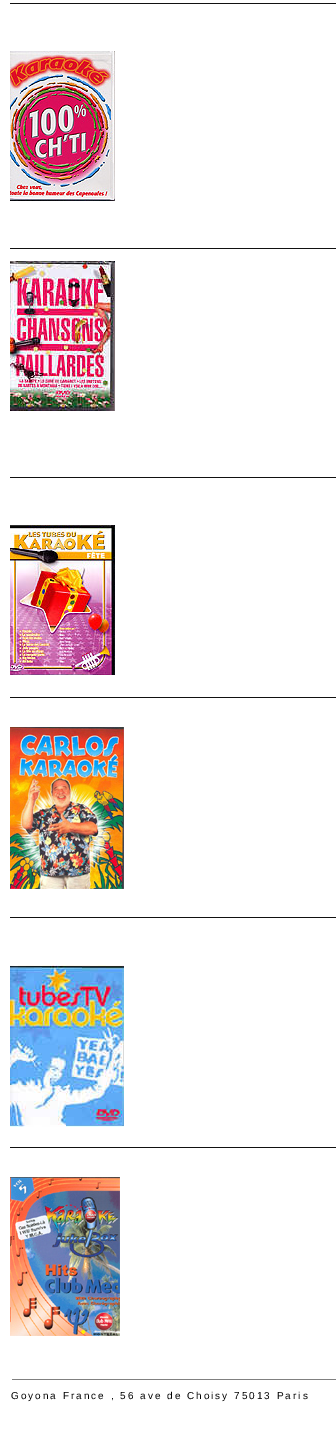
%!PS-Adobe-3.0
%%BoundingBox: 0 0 336 1431
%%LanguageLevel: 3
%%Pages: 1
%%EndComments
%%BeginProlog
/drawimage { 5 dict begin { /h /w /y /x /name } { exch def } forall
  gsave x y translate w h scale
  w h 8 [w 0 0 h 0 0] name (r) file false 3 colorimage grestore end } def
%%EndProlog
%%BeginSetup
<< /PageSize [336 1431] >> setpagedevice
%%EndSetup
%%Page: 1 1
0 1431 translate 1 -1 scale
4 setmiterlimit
1 setgray
0 0 336 1431 rectfill
0.067 setgray
10 3 326 1 rectfill
(images/1.raw) 10 51 105 150 drawimage
10 248 326 1 rectfill
(images/2.raw) 10 261 105 150 drawimage
10 477 326 1 rectfill
(images/3.raw) 10 525 105 150 drawimage
10 697 326 1 rectfill
(images/4.raw) 10 727 114 162 drawimage
10 917 326 1 rectfill
(images/5.raw) 10 965 114 162 drawimage
10 1147 326 1 rectfill
(images/6.raw) 10 1177 110 159 drawimage
0.502 setgray
11 1379 325 1 rectfill
1 setgray
11 1379 1 1 rectfill
/LiberationSans-Regular [10 0 0 -10 0 0] selectfont
0 setgray
11 1399 moveto 2 0 (Goyona France , 56 ave de Choisy 75013 Paris) ashow
showpage
%%EOF
